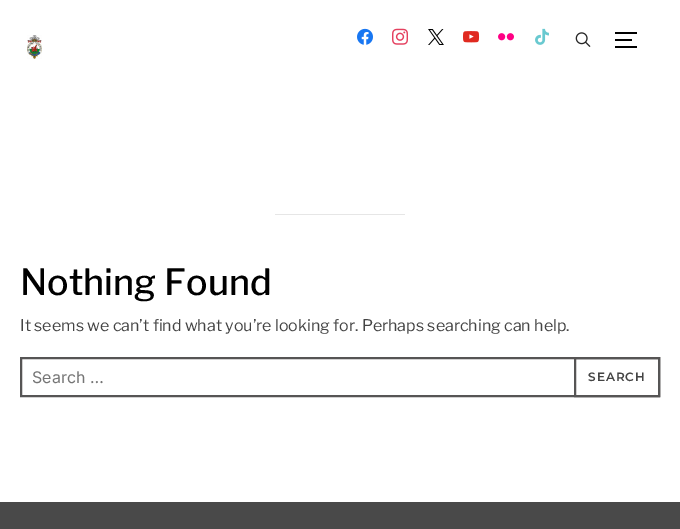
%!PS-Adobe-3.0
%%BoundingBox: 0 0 680 529
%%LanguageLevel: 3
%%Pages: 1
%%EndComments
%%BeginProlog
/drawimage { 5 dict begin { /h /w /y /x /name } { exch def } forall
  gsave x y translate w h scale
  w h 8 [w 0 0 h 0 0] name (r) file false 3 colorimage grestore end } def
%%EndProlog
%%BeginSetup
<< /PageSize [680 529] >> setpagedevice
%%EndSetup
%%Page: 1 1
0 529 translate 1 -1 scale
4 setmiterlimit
1 setgray
0 0 680 529 rectfill
(images/1.raw) 27 35 15 24 drawimage
(images/2.raw) 357 28 16 17 drawimage
(images/3.raw) 392 28 16 17 drawimage
(images/4.raw) 428 29 16 16 drawimage
(images/5.raw) 463 31 17 12 drawimage
(images/6.raw) 498 33 16 8 drawimage
(images/7.raw) 535 28 14 17 drawimage
(images/8.raw) 575 32 16 15 drawimage
0 setgray
615 32 22 2 rectfill
615 39 17 2 rectfill
615 46 22 2 rectfill
0.902 setgray
275 214 130 1 rectfill
0.337 0.333 0.333 setrgbcolor
2 setlinewidth
21 358 638 38 rectstroke
575 358 84 38 rectstroke
0.286 setgray
0 502 680 27 rectfill
/LibreFranklin-Medium [36 0 0 -36 0 0] selectfont
0 setgray
20 295 moveto (Nothing Found) show
/LibreFranklin-Regular [16 0 0 -16 0 0] selectfont
0.267 setgray
20 331 moveto (It seems we can’t find what you’re looking for. Perhaps searching can help.) show
/Inter-Regular [16 0 0 -16 0 0] selectfont
0.459 setgray
32 383 moveto (Search …) show
/Montserrat-SemiBold [12 0 0 -12 0 0] selectfont
0.267 setgray
588 381 moveto 1 0 (SEARCH) ashow
showpage
%%EOF
